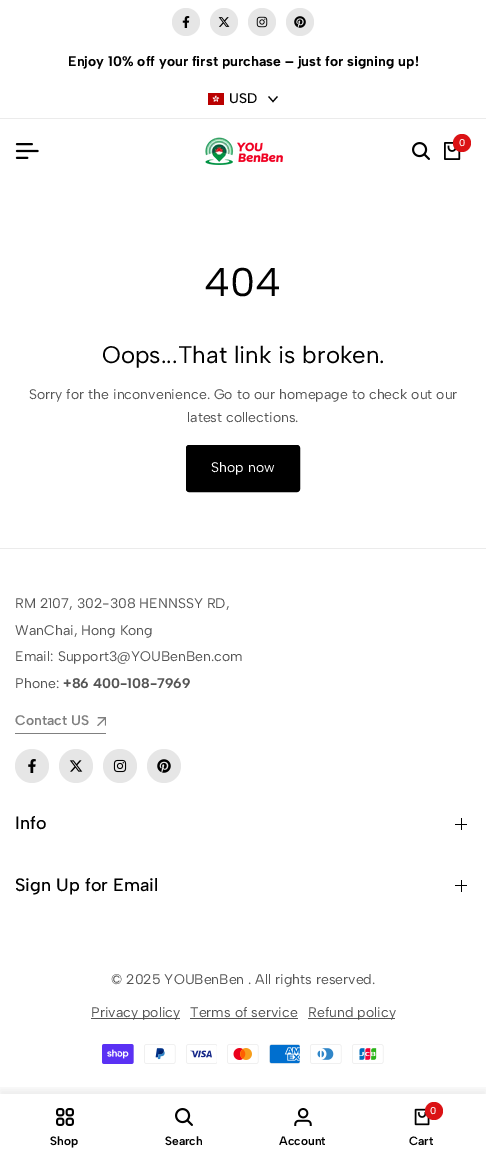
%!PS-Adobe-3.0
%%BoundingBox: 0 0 486 1161
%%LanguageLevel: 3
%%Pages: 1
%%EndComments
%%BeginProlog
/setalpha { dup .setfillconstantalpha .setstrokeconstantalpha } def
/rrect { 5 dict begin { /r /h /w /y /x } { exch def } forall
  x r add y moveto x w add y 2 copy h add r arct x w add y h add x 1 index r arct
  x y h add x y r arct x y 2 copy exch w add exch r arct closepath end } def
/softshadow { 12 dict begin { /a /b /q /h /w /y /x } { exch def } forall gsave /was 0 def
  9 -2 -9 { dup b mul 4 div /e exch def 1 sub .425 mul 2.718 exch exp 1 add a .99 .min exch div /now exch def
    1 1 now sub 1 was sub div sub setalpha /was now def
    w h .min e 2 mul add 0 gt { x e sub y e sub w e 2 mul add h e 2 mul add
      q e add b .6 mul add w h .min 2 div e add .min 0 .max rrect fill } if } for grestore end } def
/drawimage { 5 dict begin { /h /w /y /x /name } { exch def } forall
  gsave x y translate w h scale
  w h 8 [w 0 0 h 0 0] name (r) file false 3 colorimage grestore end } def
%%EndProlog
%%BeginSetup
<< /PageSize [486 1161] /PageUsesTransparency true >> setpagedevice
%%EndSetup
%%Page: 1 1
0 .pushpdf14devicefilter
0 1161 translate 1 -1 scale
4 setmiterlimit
1 setgray
0 0 486 1161 rectfill
0.922 setgray
0 118 486 1 rectfill
0.902 setgray
newpath 186 22 14 0 360 arc closepath fill
(images/1.raw) 182 16 8 12 drawimage
newpath 224 22 14 0 360 arc closepath fill
(images/2.raw) 218 17 12 10 drawimage
newpath 262 22 14 0 360 arc closepath fill
(images/3.raw) 256 16 12 12 drawimage
newpath 300 22 14 0 360 arc closepath fill
(images/4.raw) 294 16 12 12 drawimage
(images/5.raw) 208 93 16 12 drawimage
0 setgray
1.1 setlinewidth
2 setlinecap
newpath 277 97 moveto 273 101.5 lineto 269 97 lineto stroke
(images/6.raw) 15 143 24 16 drawimage
(images/7.raw) 205 137 78 28 drawimage
(images/8.raw) 412 142 18 18 drawimage
(images/9.raw) 444 142 17 18 drawimage
0.859 0.071 0.082 setrgbcolor
newpath 462 143 9 0 360 arc closepath fill
0 setgray
186.5 445.5 113 46 2.5 rrect gsave fill grestore
1 setlinewidth
0 setlinecap
stroke
0.922 setgray
0 548 486 1 rectfill
(images/10.raw) 97 717 9 9 drawimage
0.502 setgray
15 733 91 1 rectfill
0.902 setgray
newpath 32 766 17 0 360 arc closepath fill
(images/11.raw) 28 759 8 14 drawimage
newpath 76 766 17 0 360 arc closepath fill
(images/12.raw) 69 760 14 12 drawimage
newpath 120 766 17 0 360 arc closepath fill
(images/13.raw) 113 759 14 14 drawimage
newpath 164 766 17 0 360 arc closepath fill
(images/14.raw) 157 759 14 14 drawimage
0 setgray
461 818 1 12 rectfill
455 824 12 1 rectfill
461 880 1 12 rectfill
455 885 12 1 rectfill
0.329 setgray
91 1018 89 1 rectfill
190 1018 108 1 rectfill
308 1018 87 1 rectfill
(images/15.raw) 102 1044 32 20 drawimage
(images/16.raw) 144 1044 32 20 drawimage
(images/17.raw) 186 1044 31 20 drawimage
(images/18.raw) 227 1044 32 20 drawimage
(images/19.raw) 269 1044 31 20 drawimage
(images/20.raw) 310 1044 32 20 drawimage
(images/21.raw) 352 1044 32 20 drawimage
gsave
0 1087 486 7 rectclip
0 setgray
0 1090 486 67 0 5 0.08 softshadow
grestore
(images/22.raw) 56 1108 18 18 drawimage
(images/8.raw) 175 1108 18 18 drawimage
(images/23.raw) 294 1108 18 18 drawimage
(images/24.raw) 414 1108 16 18 drawimage
0.859 0.071 0.082 setrgbcolor
newpath 434 1111 9 0 360 arc closepath fill
/AlbertSans-Bold [14 0 0 -14 0 0] selectfont
0 setgray
68 66 moveto (Enjoy 10% off your first purchase – just for signing up!) show
/AlbertSans-Medium [14 0 0 -14 0 0] selectfont
229 103 moveto (USD) show
/AlbertSans-Medium [10 0 0 -10 0 0] selectfont
1 setgray
459 146 moveto (0) show
/AlbertSans-Regular [40 0 0 -40 0 0] selectfont
0 setgray
204 296 moveto (404) show
/AlbertSans-Regular [24 0 0 -24 0 0] selectfont
102 363 moveto (Oops...That link is broken.) show
/AlbertSans-Regular [14 0 0 -14 0 0] selectfont
0.329 setgray
29 399 moveto (Sorry for the inconvenience. Go to our homepage to check out our) show
187 422 moveto (latest collections.) show
1 setgray
211 472 moveto (Shop now) show
0.329 setgray
15 608 moveto (RM 2107, 302-308 HENNSSY RD,) show
15 635 moveto (WanChai, Hong Kong) show
15 661 moveto (Email: Support3@YOUBenBen.com) show
15 688 moveto (Phone:) show
/AlbertSans-Bold [14 0 0 -14 0 0] selectfont
63 688 moveto (+86 400-108-7969) show
/AlbertSans-SemiBold [14 0 0 -14 0 0] selectfont
0.502 setgray
15 725 moveto (Contact US) show
/AlbertSans-Medium [18 0 0 -18 0 0] selectfont
0 setgray
15 829 moveto (Info) show
15 891 moveto (Sign Up for Email) show
/AlbertSans-Regular [14 0 0 -14 0 0] selectfont
0.329 setgray
111 984 moveto (© 2025 YOUBenBen . All rights reserved.) show
91 1017 moveto (Privacy policy) show
190 1017 moveto (Terms of service) show
308 1017 moveto (Refund policy) show
/AlbertSans-SemiBold [12 0 0 -12 0 0] selectfont
0 setgray
50 1145 moveto (Shop) show
165 1145 moveto (Search) show
279 1145 moveto (Account) show
/AlbertSans-Medium [10 0 0 -10 0 0] selectfont
1 setgray
430 1114 moveto (0) show
/AlbertSans-SemiBold [12 0 0 -12 0 0] selectfont
0 setgray
409 1145 moveto (Cart) show
.poppdf14devicefilter showpage
%%EOF
